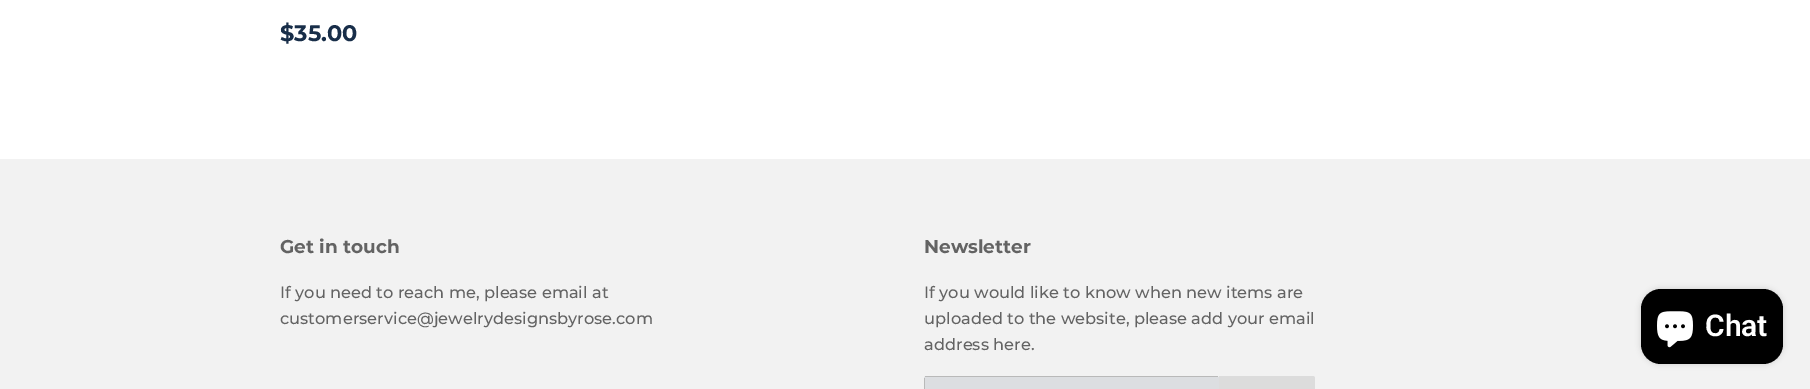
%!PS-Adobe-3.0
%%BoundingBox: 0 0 1810 389
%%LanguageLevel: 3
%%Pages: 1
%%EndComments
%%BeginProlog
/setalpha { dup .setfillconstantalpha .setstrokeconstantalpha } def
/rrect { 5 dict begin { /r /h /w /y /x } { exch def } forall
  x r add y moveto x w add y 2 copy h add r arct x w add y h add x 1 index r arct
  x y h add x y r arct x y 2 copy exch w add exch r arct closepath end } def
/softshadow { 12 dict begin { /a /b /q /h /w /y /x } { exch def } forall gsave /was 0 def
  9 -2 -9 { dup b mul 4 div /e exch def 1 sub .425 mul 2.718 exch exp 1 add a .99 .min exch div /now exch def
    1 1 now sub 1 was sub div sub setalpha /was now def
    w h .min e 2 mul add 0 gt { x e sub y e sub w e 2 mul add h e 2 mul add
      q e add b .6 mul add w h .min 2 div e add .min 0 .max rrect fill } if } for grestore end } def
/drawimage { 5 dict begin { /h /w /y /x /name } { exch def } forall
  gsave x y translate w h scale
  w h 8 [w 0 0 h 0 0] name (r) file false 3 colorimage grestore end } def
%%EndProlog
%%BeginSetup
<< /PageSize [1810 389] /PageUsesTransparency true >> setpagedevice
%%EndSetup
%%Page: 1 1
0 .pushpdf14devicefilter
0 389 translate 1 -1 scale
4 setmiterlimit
1 setgray
0 0 1810 389 rectfill
0.949 setgray
0 159 1810 230 rectfill
0.863 0.871 0.882 setrgbcolor
924 376 295 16 2.5 rrect fill
0.725 setgray
925 376 293 1 rectfill
924 378 1 11 rectfill
0.863 setgray
newpath 1219 376 moveto 1312.5 376 lineto 1314 376 1315 377 1315 378.5 curveto 1315 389.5 lineto 1315 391 1314 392 1312.5 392 curveto 1219 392 lineto closepath fill
0 setgray
1641 289 142 75 20 3 0.15 softshadow
1641 289 142 75 20 rrect fill
(images/1.raw) 1657 311 36 37 drawimage
/Montserrat-Bold [22.5 0 0 -22.5 0 0] selectfont
0.094 0.18 0.286 setrgbcolor
280 41 moveto ($35.00) show
/Montserrat-Bold [18.5 0 0 -18.5 0 0] selectfont
0.388 setgray
280 253 moveto (Get in touch) show
/Montserrat-Medium [16.25 0 0 -16.25 0 0] selectfont
280 298 moveto (If you need to reach me, please email at) show
280 324 moveto (customerservice@jewelrydesignsbyrose.com) show
/Montserrat-Bold [18.5 0 0 -18.5 0 0] selectfont
924 253 moveto (Newsletter) show
/Montserrat-Medium [16.25 0 0 -16.25 0 0] selectfont
924 298 moveto (If you would like to know when new items are) show
924 324 moveto (uploaded to the website, please add your email) show
924 350 moveto (address here.) show
/Roboto-SemiBold [30 0 0 -30 0 0] selectfont
1 setgray
1705 336 moveto (Chat) show
.poppdf14devicefilter showpage
%%EOF
